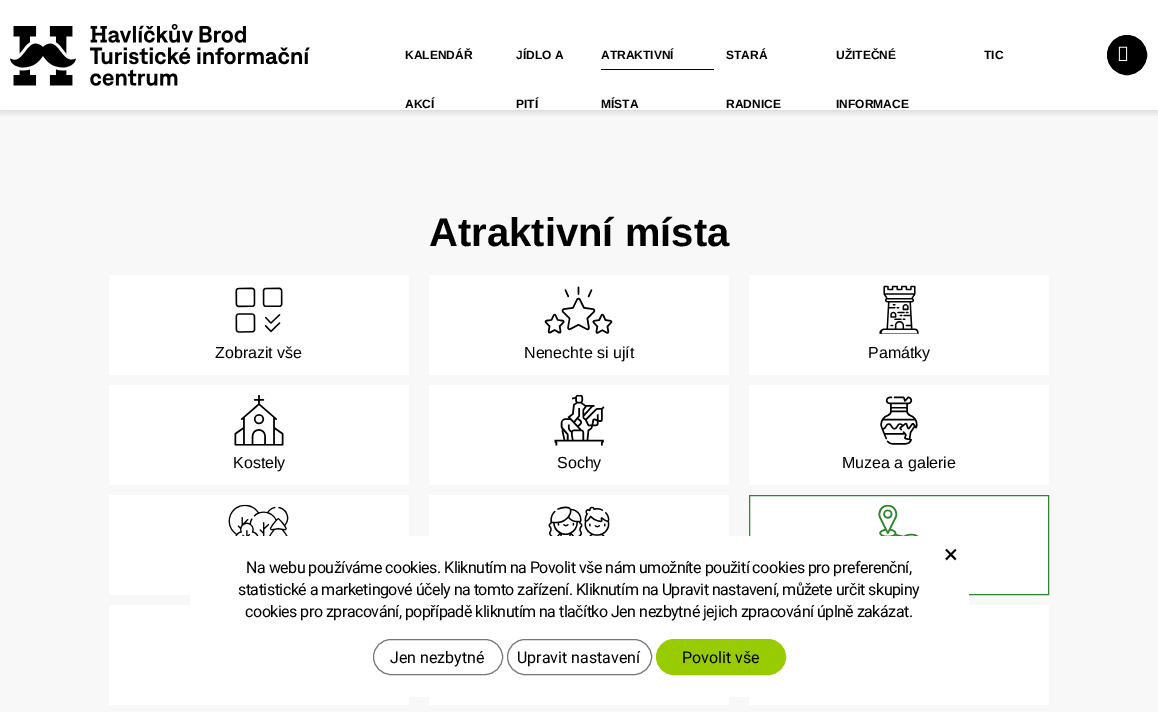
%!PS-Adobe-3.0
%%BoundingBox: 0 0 1158 712
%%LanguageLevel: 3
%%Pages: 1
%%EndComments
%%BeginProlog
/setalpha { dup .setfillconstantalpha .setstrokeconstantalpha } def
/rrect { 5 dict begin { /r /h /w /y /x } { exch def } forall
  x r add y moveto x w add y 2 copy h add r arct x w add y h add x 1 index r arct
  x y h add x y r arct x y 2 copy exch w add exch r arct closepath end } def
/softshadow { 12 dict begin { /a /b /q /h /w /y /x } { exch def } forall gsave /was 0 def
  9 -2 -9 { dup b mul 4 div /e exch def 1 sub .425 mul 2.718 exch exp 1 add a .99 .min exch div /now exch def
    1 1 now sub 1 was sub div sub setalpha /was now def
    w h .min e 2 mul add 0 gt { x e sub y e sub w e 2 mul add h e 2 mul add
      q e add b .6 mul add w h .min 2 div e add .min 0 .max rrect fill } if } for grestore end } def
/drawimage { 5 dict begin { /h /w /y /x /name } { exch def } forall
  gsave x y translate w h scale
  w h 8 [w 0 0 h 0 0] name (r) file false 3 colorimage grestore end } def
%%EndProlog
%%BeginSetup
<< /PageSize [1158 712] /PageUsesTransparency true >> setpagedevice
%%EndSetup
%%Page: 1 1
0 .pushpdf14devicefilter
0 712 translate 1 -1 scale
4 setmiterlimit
1 setgray
0 0 1158 712 rectfill
0.973 setgray
0 110 1158 602 rectfill
gsave
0 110 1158 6 rectclip
0 setgray
0 0 1158 110 0 5 0.2 softshadow
grestore
(images/1.raw) 10 24 300 62 drawimage
0 setgray
newpath 1127 55 19.5 0 360 arc closepath gsave fill grestore
stroke
(images/2.raw) 1118 46 10 15 drawimage
601 69 113 1 rectfill
1 setgray
109 275 300 100 rectfill
(images/3.raw) 235 287 48 46 drawimage
429 275 300 100 rectfill
(images/4.raw) 544 286 69 48 drawimage
749 275 300 100 rectfill
(images/5.raw) 879 285 40 49 drawimage
109 385 300 100 rectfill
(images/6.raw) 234 394 50 52 drawimage
429 385 300 100 rectfill
(images/7.raw) 554 394 51 52 drawimage
749 385 300 100 rectfill
(images/8.raw) 880 396 38 49 drawimage
109 495 300 100 rectfill
(images/9.raw) 228 504 61 32 drawimage
429 495 300 41 rectfill
(images/10.raw) 548 506 62 30 drawimage
newpath 749.5 495.5 moveto 1048.5 495.5 lineto 1048.5 594.5 lineto 749.5 594.5 lineto closepath gsave fill grestore
0.176 0.525 0.176 setrgbcolor
stroke
(images/11.raw) 878 504 41 32 drawimage
1 setgray
109 605 300 100 rectfill
429 697 300 8 rectfill
749 605 300 100 rectfill
190 536 779 161 14 rrect fill
0.463 setgray
373.5 639.5 129 35 17.5 rrect stroke
507.5 639.5 144 35 17.5 rrect stroke
0.6 0.8 0 setrgbcolor
656.5 639.5 129 35 17.5 rrect gsave fill grestore
stroke
/LiberationSans-Bold [12 0 0 -12 0 0] selectfont
0 setgray
405 59 moveto (KALENDÁŘ) show
405 108 moveto (AKCÍ) show
516 59 moveto (JÍDLO A) show
516 108 moveto (PITÍ) show
601 59 moveto (ATRAKTIVNÍ) show
601 108 moveto (MÍSTA) show
726 59 moveto (STARÁ) show
726 108 moveto (RADNICE) show
836 59 moveto (UŽITEČNÉ) show
836 108 moveto (INFORMACE) show
984 59 moveto (TIC) show
/LiberationSans-Bold [40 0 0 -40 0 0] selectfont
429 246 moveto (Atraktivní místa) show
/LiberationSans-Regular [16 0 0 -16 0 0] selectfont
215 358 moveto (Zobrazit vše) show
524 358 moveto (Nenechte si ujít) show
868 358 moveto (Památky) show
233 468 moveto (Kostely) show
557 468 moveto (Sochy) show
842 468 moveto (Muzea a galerie) show
/Roboto-Regular [26 0 0 -26 0 0] selectfont
944 563 moveto (×) show
/Roboto-Regular [16 0 0 -16 0 0] selectfont
246 573 moveto -0.5 0 (Na webu používáme cookies. Kliknutím na Povolit vše nám umožníte použití cookies pro preferenční,) ashow
238 595 moveto -0.5 0 (statistické a marketingové účely na tomto zařízení. Kliknutím na Upravit nastavení, můžete určit skupiny) ashow
245 617 moveto -0.5 0 (cookies pro zpracování, popřípadě kliknutím na tlačítko Jen nezbytné jejich zpracování úplně zakázat.) ashow
390 663 moveto (Jen nezbytné) show
517 663 moveto (Upravit nastavení) show
682 663 moveto (Povolit vše) show
.poppdf14devicefilter showpage
%%EOF
